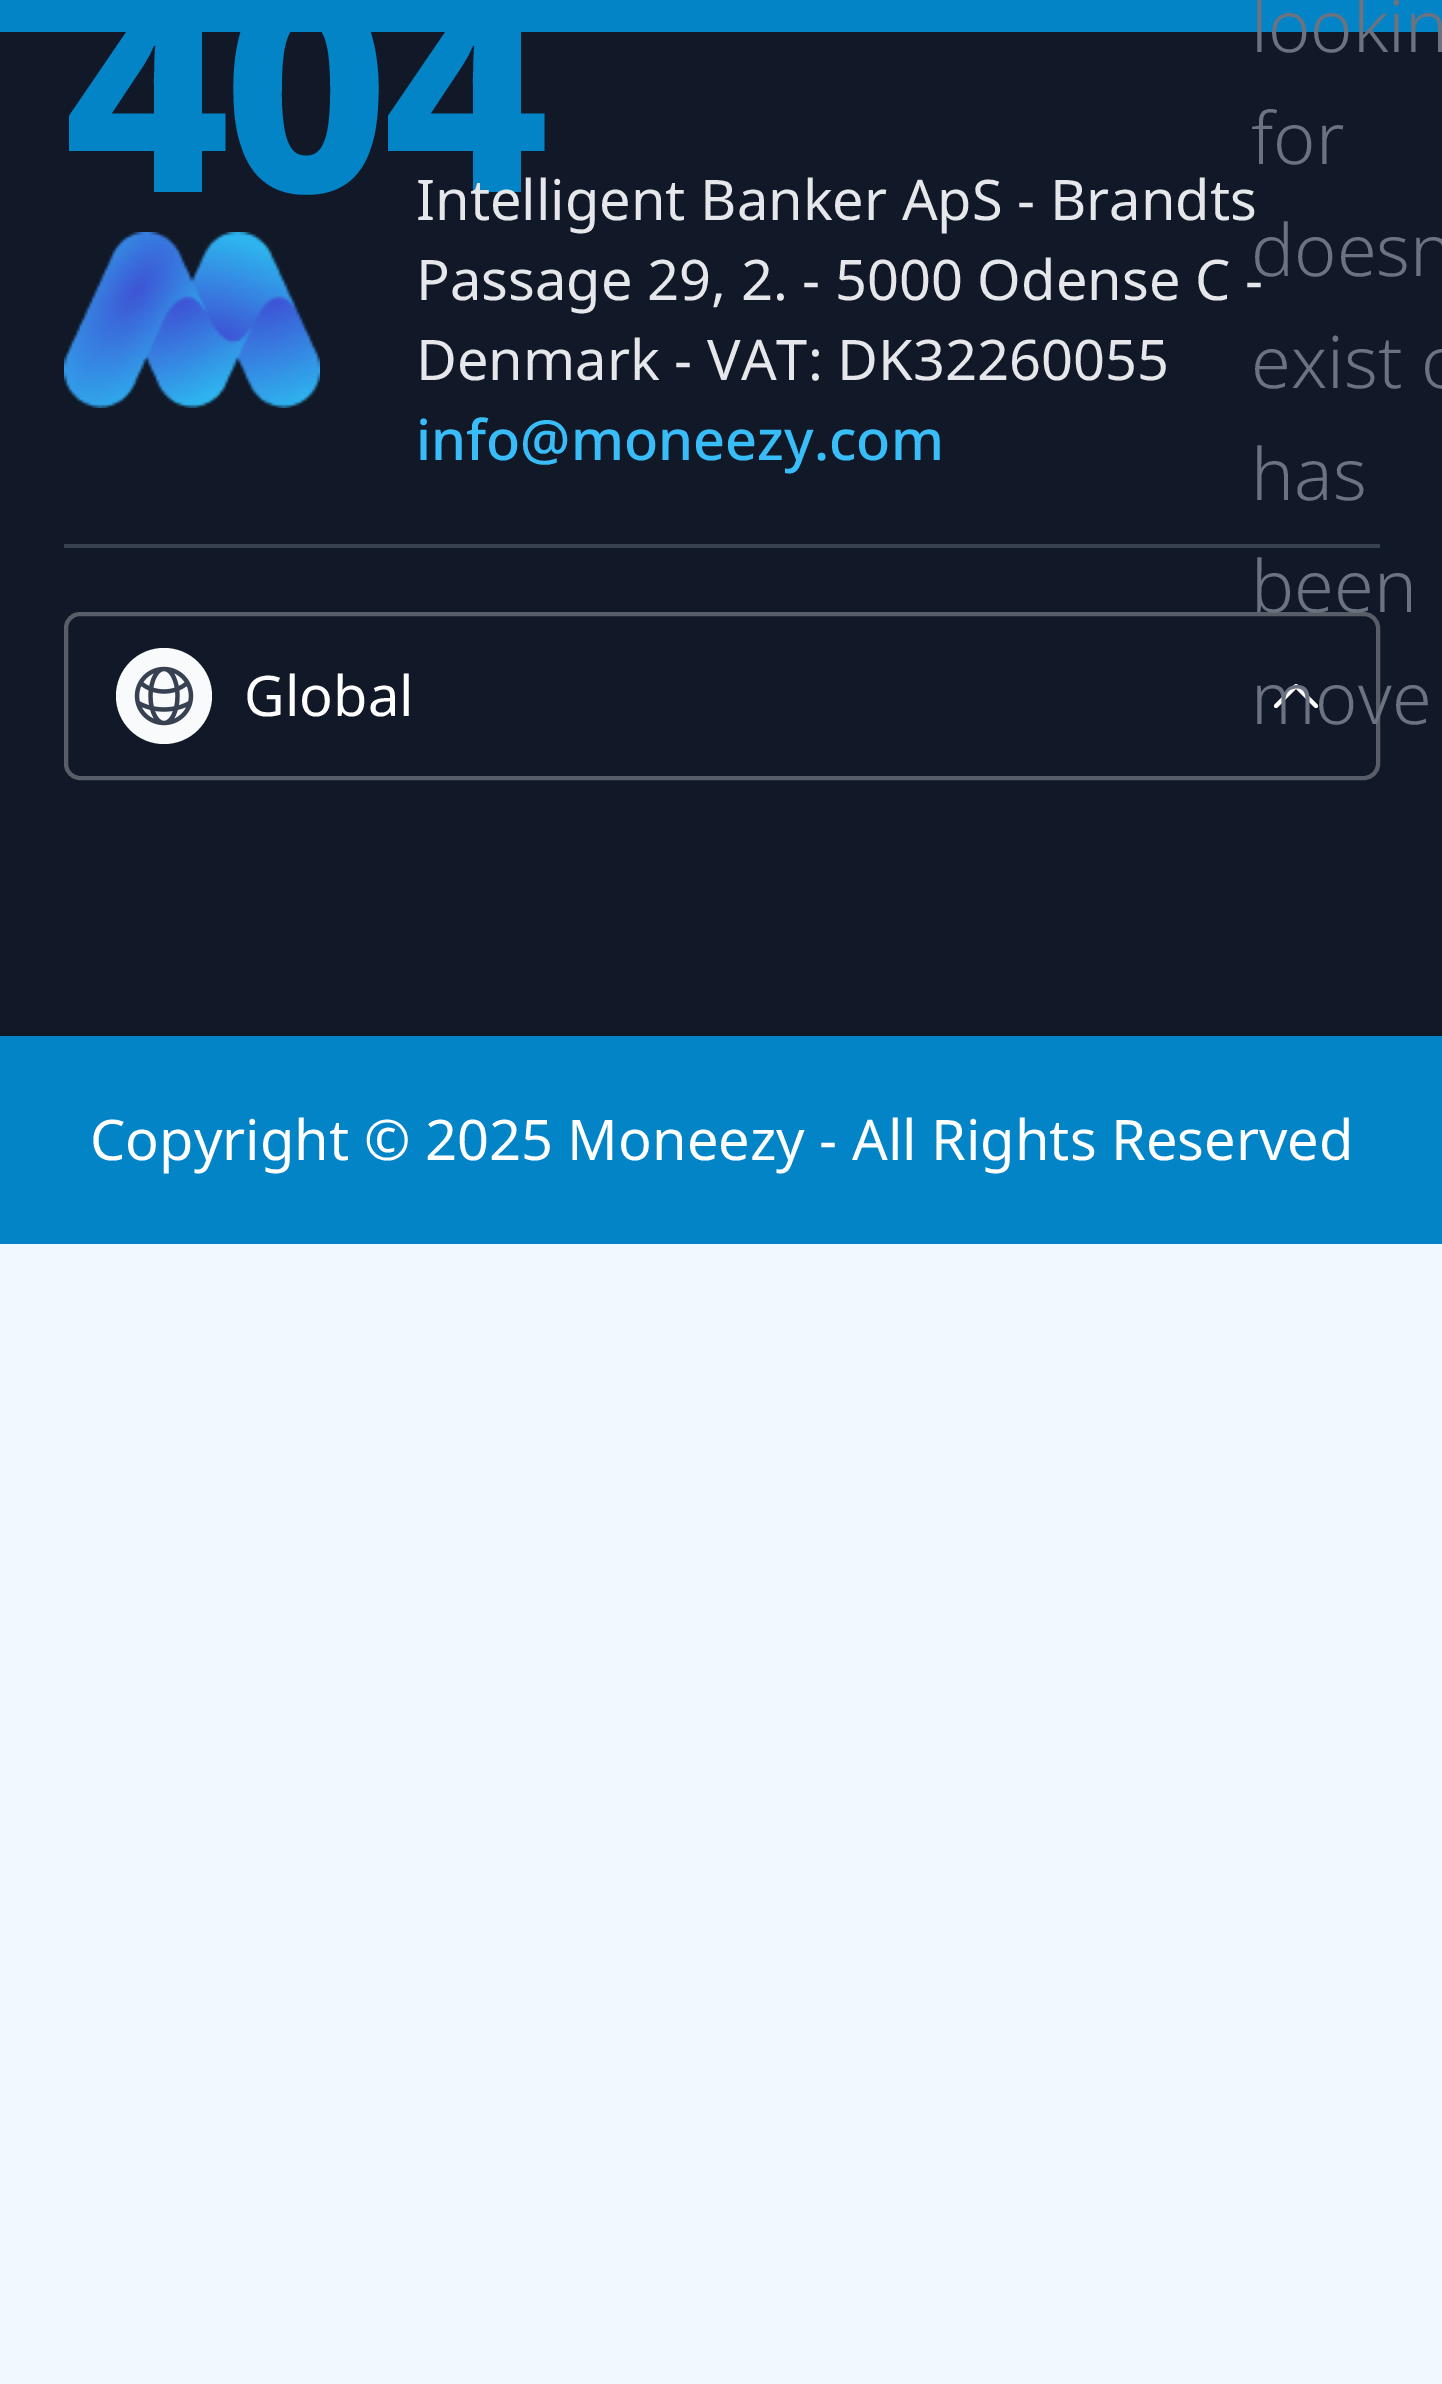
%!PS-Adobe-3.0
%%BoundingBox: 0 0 1442 2384
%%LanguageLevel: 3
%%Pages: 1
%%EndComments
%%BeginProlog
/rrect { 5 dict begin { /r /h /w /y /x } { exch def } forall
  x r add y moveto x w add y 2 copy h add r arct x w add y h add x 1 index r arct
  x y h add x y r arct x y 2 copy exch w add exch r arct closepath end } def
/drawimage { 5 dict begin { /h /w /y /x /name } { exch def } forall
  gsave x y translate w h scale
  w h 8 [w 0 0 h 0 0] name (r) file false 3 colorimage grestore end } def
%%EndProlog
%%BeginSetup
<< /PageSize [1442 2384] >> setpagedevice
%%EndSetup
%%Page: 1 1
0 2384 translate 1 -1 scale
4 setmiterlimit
0.941 0.976 1 setrgbcolor
0 0 1442 2384 rectfill
0.067 0.094 0.153 setrgbcolor
0 32 1442 1004 rectfill
0.008 0.518 0.78 setrgbcolor
0 0 1442 32 rectfill
0.216 0.255 0.318 setrgbcolor
64 544 1316 4 rectfill
(images/1.raw) 64 232 256 176 drawimage
0.345 0.365 0.408 setrgbcolor
4 setlinewidth
66 614 1312 164 14 rrect stroke
0.976 0.98 0.984 setrgbcolor
newpath 164 696 48 0 360 arc closepath fill
(images/2.raw) 134 666 60 60 drawimage
1 setgray
1 setlinecap
1 setlinejoin
newpath 1276 706 moveto 1296 686 lineto 1316 706 lineto stroke
0.008 0.518 0.78 setrgbcolor
0 1036 1442 208 rectfill
/NotoSans-ExtraBold [288 0 0 -288 0 0] selectfont
64 192 moveto -7 0 (404) ashow
/NotoSans-Light [72 0 0 -72 0 0] selectfont
0.42 0.447 0.502 setrgbcolor
1251 52 moveto (lookin) show
1251 164 moveto (for) show
1251 276 moveto (doesn) show
1251 388 moveto (exist o) show
1251 500 moveto (has) show
1251 612 moveto (been) show
1251 724 moveto (move) show
/NotoSans-Regular [56 0 0 -56 0 0] selectfont
0.898 0.906 0.922 setrgbcolor
416 220 moveto (Intelligent Banker ApS - Brandts) show
416 300 moveto (Passage 29, 2. - 5000 Odense C -) show
416 380 moveto (Denmark - VAT: DK32260055) show
/NotoSans-Medium [56 0 0 -56 0 0] selectfont
0.22 0.741 0.973 setrgbcolor
416 460 moveto (info@moneezy.com) show
/NotoSans-Regular [56 0 0 -56 0 0] selectfont
1 setgray
244 716 moveto (Global) show
90 1160 moveto (Copyright © 2025 Moneezy - All Rights Reserved) show
showpage
%%EOF
